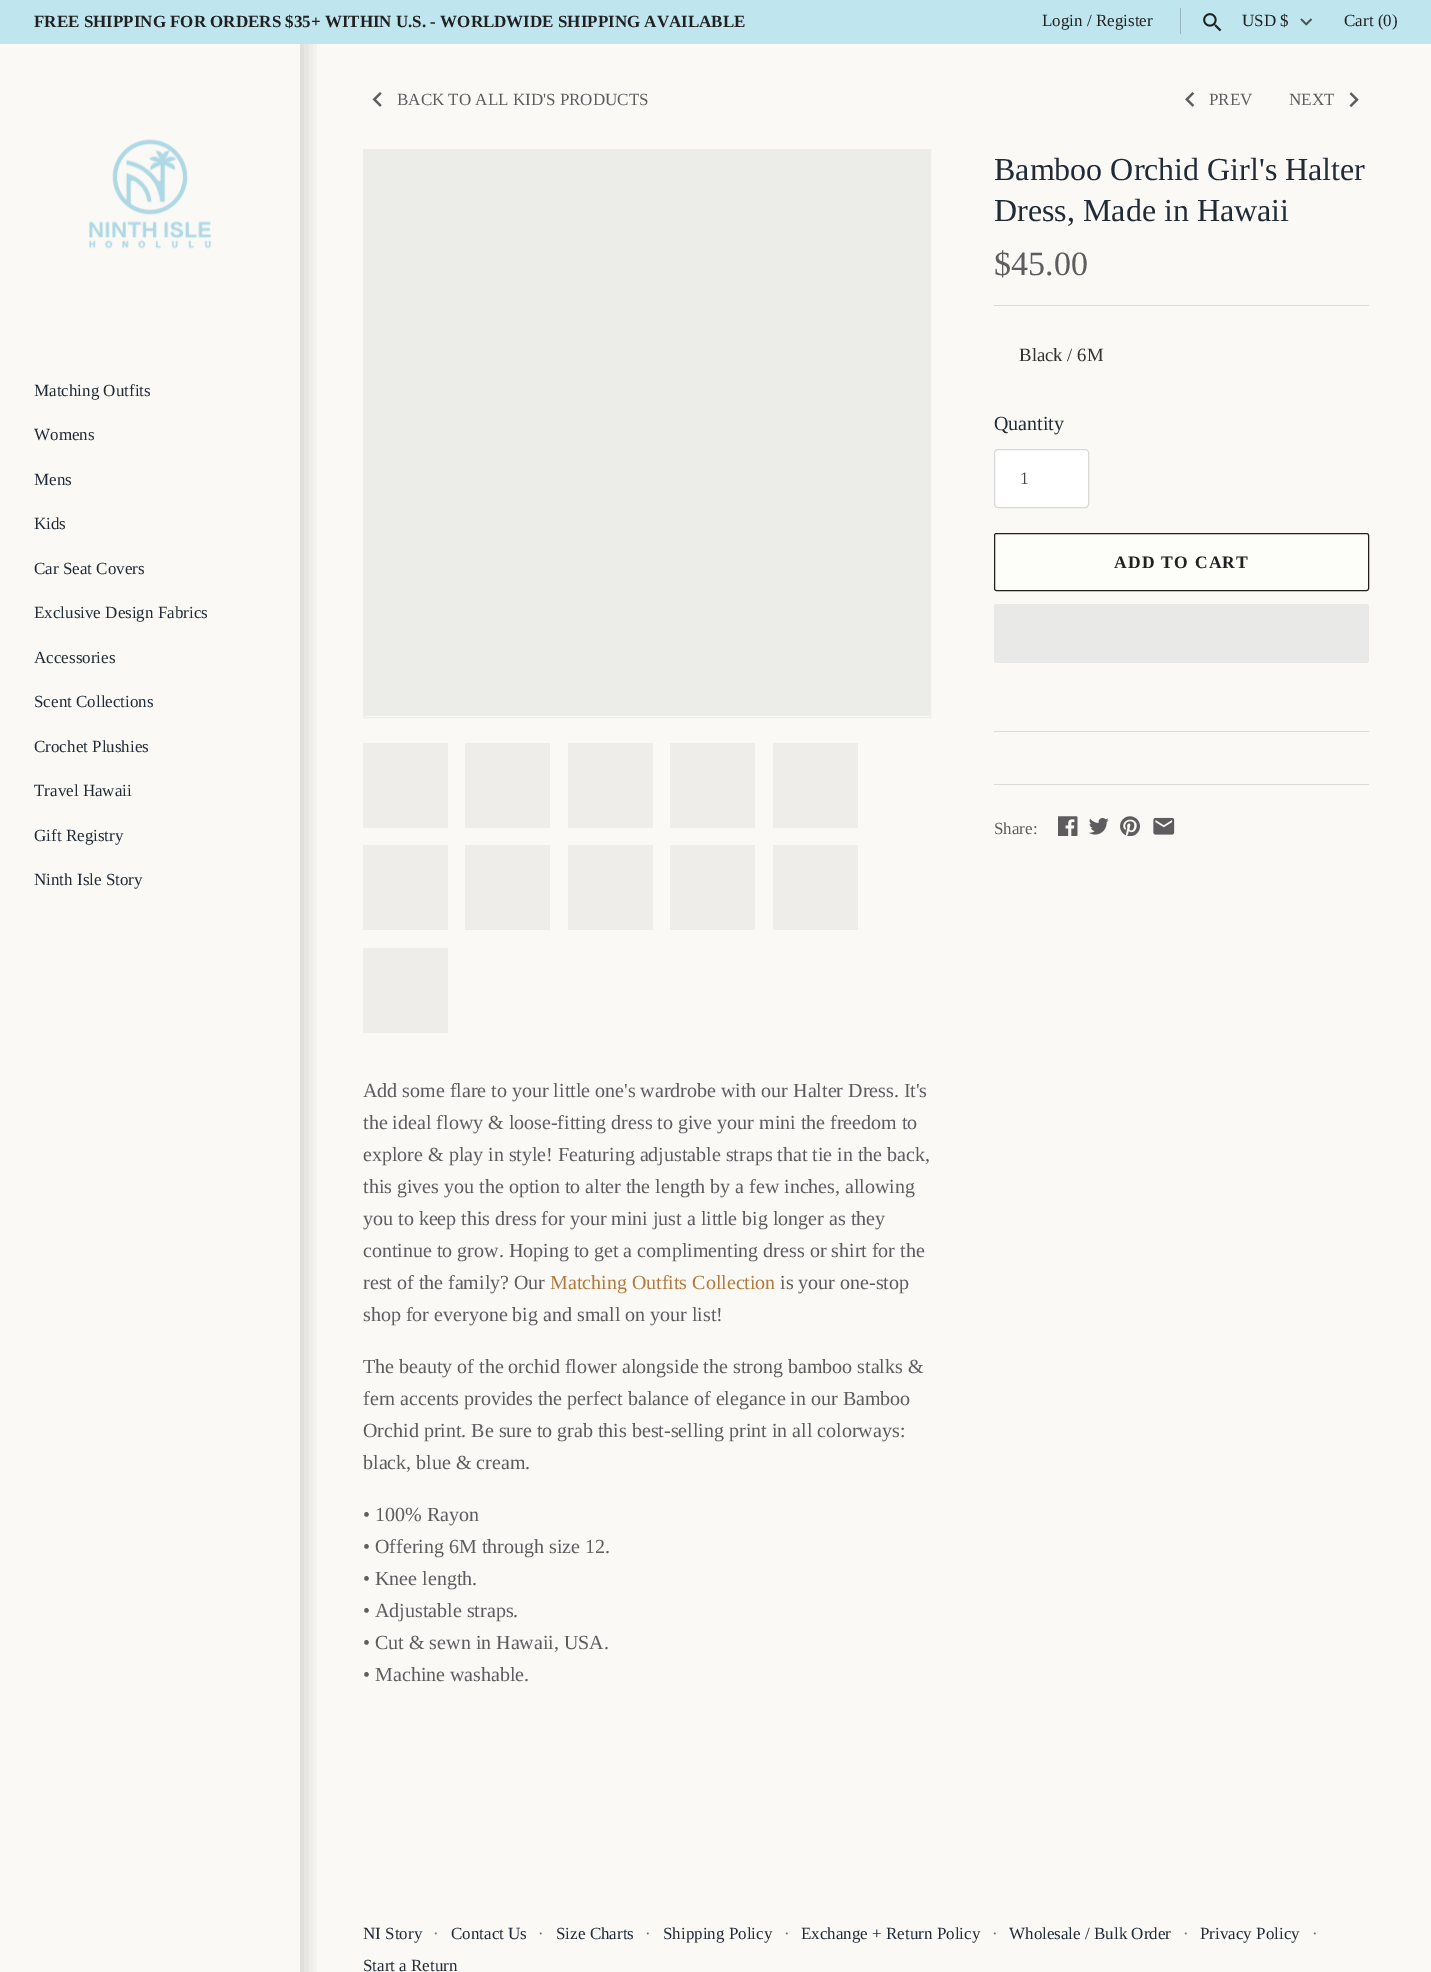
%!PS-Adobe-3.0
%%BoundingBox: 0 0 1431 1972
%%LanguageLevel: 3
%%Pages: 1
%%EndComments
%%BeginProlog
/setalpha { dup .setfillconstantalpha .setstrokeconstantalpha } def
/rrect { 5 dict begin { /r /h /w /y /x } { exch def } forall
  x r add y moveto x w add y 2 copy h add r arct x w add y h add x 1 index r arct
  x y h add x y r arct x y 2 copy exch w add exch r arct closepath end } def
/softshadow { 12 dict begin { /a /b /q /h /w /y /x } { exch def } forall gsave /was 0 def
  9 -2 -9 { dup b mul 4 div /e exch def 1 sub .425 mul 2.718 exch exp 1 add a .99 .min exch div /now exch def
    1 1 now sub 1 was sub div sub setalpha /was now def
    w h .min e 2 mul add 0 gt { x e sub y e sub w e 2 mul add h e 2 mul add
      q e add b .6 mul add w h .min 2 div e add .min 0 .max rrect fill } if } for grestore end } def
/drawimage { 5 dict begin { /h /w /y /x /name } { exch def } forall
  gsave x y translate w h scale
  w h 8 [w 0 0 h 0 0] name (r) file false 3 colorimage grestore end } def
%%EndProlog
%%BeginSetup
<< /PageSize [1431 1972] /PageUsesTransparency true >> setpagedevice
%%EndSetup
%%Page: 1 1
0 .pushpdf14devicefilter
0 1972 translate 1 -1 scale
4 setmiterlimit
0.98 0.976 0.961 setrgbcolor
0 0 1431 1972 rectfill
gsave
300 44 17 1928 rectclip
0 setgray
-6 38 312 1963 0 9.5 0.15 softshadow
grestore
0.749 0.898 0.937 setrgbcolor
0 0 1431 44 rectfill
0.596 0.706 0.737 setrgbcolor
1180 8 1 26 rectfill
(images/1.raw) 1203 13 19 19 drawimage
(images/2.raw) 1300 18 13 8 drawimage
(images/3.raw) 89 139 122 110 drawimage
(images/4.raw) 372 92 10 15 drawimage
(images/5.raw) 1185 92 10 15 drawimage
(images/6.raw) 1349 92 10 16 drawimage
0.859 0.855 0.843 setrgbcolor
994 305 375 1 rectfill
1 setgray
994 449 95 59 4 rrect fill
0.15 setalpha
0 setgray
994.5 449.5 94 58 3.5 rrect stroke
1 setalpha
0.992 0.992 0.976 setrgbcolor
994.5 533.5 374 57 2 rrect gsave fill grestore
0.129 setgray
stroke
0.914 0.914 0.906 setrgbcolor
994 604 375 59 2.5 rrect fill
0.859 0.855 0.843 setrgbcolor
994 731 375 1 rectfill
994 784 375 1 rectfill
(images/7.raw) 1058 816 20 20 drawimage
(images/8.raw) 1089 817 20 18 drawimage
(images/9.raw) 1120 816 20 20 drawimage
(images/10.raw) 1153 817 22 18 drawimage
0.933 0.929 0.914 setrgbcolor
363.5 149.5 567 568 rectstroke
0.925 0.925 0.914 setrgbcolor
364 150 566 566 rectfill
0.933 0.929 0.914 setrgbcolor
363 743 85 85 rectfill
465 743 85 85 rectfill
568 743 85 85 rectfill
670 743 85 85 rectfill
773 743 85 85 rectfill
363 845 85 85 rectfill
465 845 85 85 rectfill
568 845 85 85 rectfill
670 845 85 85 rectfill
773 845 85 85 rectfill
363 948 85 85 rectfill
/LiberationSerif-Bold [17 0 0 -17 0 0] selectfont
0.129 setgray
34 27 moveto (FREE SHIPPING FOR ORDERS $35+ WITHIN U.S. - WORLDWIDE SHIPPING AVAILABLE) show
/LiberationSerif-Regular [17 0 0 -17 0 0] selectfont
1042 26 moveto (Login / Register) show
1242 26 moveto (USD $) show
1344 26 moveto (Cart \(0\)) show
0.129 0.169 0.212 setrgbcolor
34 396 moveto (Matching Outfits) show
34 440 moveto (Womens) show
34 485 moveto (Mens) show
34 529 moveto (Kids) show
34 574 moveto (Car Seat Covers) show
34 618 moveto (Exclusive Design Fabrics) show
34 663 moveto (Accessories) show
34 707 moveto (Scent Collections) show
34 752 moveto (Crochet Plushies) show
34 796 moveto (Travel Hawaii) show
34 841 moveto (Gift Registry) show
34 885 moveto (Ninth Isle Story) show
0.365 0.365 0.376 setrgbcolor
397 105 moveto (BACK TO ALL KID'S PRODUCTS) show
1209 105 moveto (PREV) show
1289 105 moveto (NEXT) show
/LiberationSerif-Regular [32 0 0 -32 0 0] selectfont
0.129 0.169 0.212 setrgbcolor
994 180 moveto (Bamboo Orchid Girl's Halter) show
994 221 moveto (Dress, Made in Hawaii) show
/LiberationSerif-Regular [34 0 0 -34 0 0] selectfont
0.365 0.365 0.376 setrgbcolor
994 275 moveto ($45.00) show
/LiberationSerif-Regular [18.75 0 0 -18.75 0 0] selectfont
0.2 setgray
1019 361 moveto (Black / 6M) show
/LiberationSerif-Regular [20 0 0 -20 0 0] selectfont
0.129 0.169 0.212 setrgbcolor
994 430 moveto (Quantity) show
/LiberationSerif-Regular [17.5 0 0 -17.5 0 0] selectfont
0.267 setgray
1020 484 moveto (1) show
/LiberationSerif-Bold [17.5 0 0 -17.5 0 0] selectfont
0.129 setgray
1114 568 moveto 1.25 0 (ADD TO CART) ashow
/LiberationSerif-Regular [17 0 0 -17 0 0] selectfont
0.365 0.365 0.376 setrgbcolor
994 834 moveto (Share:) show
/LiberationSerif-Regular [20 0 0 -20 0 0] selectfont
363 1097 moveto (Add some flare to your little one's wardrobe with our Halter Dress. It's) show
363 1129 moveto (the ideal flowy & loose-fitting dress to give your mini the freedom to) show
363 1161 moveto (explore & play in style! Featuring adjustable straps that tie in the back,) show
363 1193 moveto (this gives you the option to alter the length by a few inches, allowing) show
363 1225 moveto (you to keep this dress for your mini just a little big longer as they) show
363 1257 moveto (continue to grow. Hoping to get a complimenting dress or shirt for the) show
363 1289 moveto (rest of the family? Our) show
0.702 0.475 0.231 setrgbcolor
550 1289 moveto (Matching Outfits Collection) show
0.365 0.365 0.376 setrgbcolor
780 1289 moveto (is your one-stop) show
363 1321 moveto (shop for everyone big and small on your list!) show
363 1373 moveto (The beauty of the orchid flower alongside the strong bamboo stalks &) show
363 1405 moveto (fern accents provides the perfect balance of elegance in our Bamboo) show
363 1437 moveto (Orchid print. Be sure to grab this best-selling print in all colorways:) show
363 1469 moveto (black, blue & cream.) show
363 1521 moveto (• 100% Rayon) show
363 1553 moveto (• Offering 6M through size 12.) show
363 1585 moveto (• Knee length.) show
363 1617 moveto (• Adjustable straps.) show
363 1649 moveto (• Cut & sewn in Hawaii, USA.) show
363 1681 moveto (• Machine washable.) show
/LiberationSerif-Regular [17 0 0 -17 0 0] selectfont
0.129 0.169 0.212 setrgbcolor
363 1939 moveto (NI Story) show
0.424 0.451 0.471 setrgbcolor
433 1939 moveto (·) show
0.129 0.169 0.212 setrgbcolor
451 1939 moveto (Contact Us) show
0.424 0.451 0.471 setrgbcolor
538 1939 moveto (·) show
0.129 0.169 0.212 setrgbcolor
556 1939 moveto (Size Charts) show
0.424 0.451 0.471 setrgbcolor
645 1939 moveto (·) show
0.129 0.169 0.212 setrgbcolor
663 1939 moveto (Shipping Policy) show
0.424 0.451 0.471 setrgbcolor
784 1939 moveto (·) show
0.129 0.169 0.212 setrgbcolor
801 1939 moveto (Exchange + Return Policy) show
0.424 0.451 0.471 setrgbcolor
992 1939 moveto (·) show
0.129 0.169 0.212 setrgbcolor
1009 1939 moveto (Wholesale / Bulk Order) show
0.424 0.451 0.471 setrgbcolor
1183 1939 moveto (·) show
0.129 0.169 0.212 setrgbcolor
1200 1939 moveto (Privacy Policy) show
0.424 0.451 0.471 setrgbcolor
1312 1939 moveto (·) show
0.129 0.169 0.212 setrgbcolor
363 1971 moveto (Start a Return) show
.poppdf14devicefilter showpage
%%EOF
